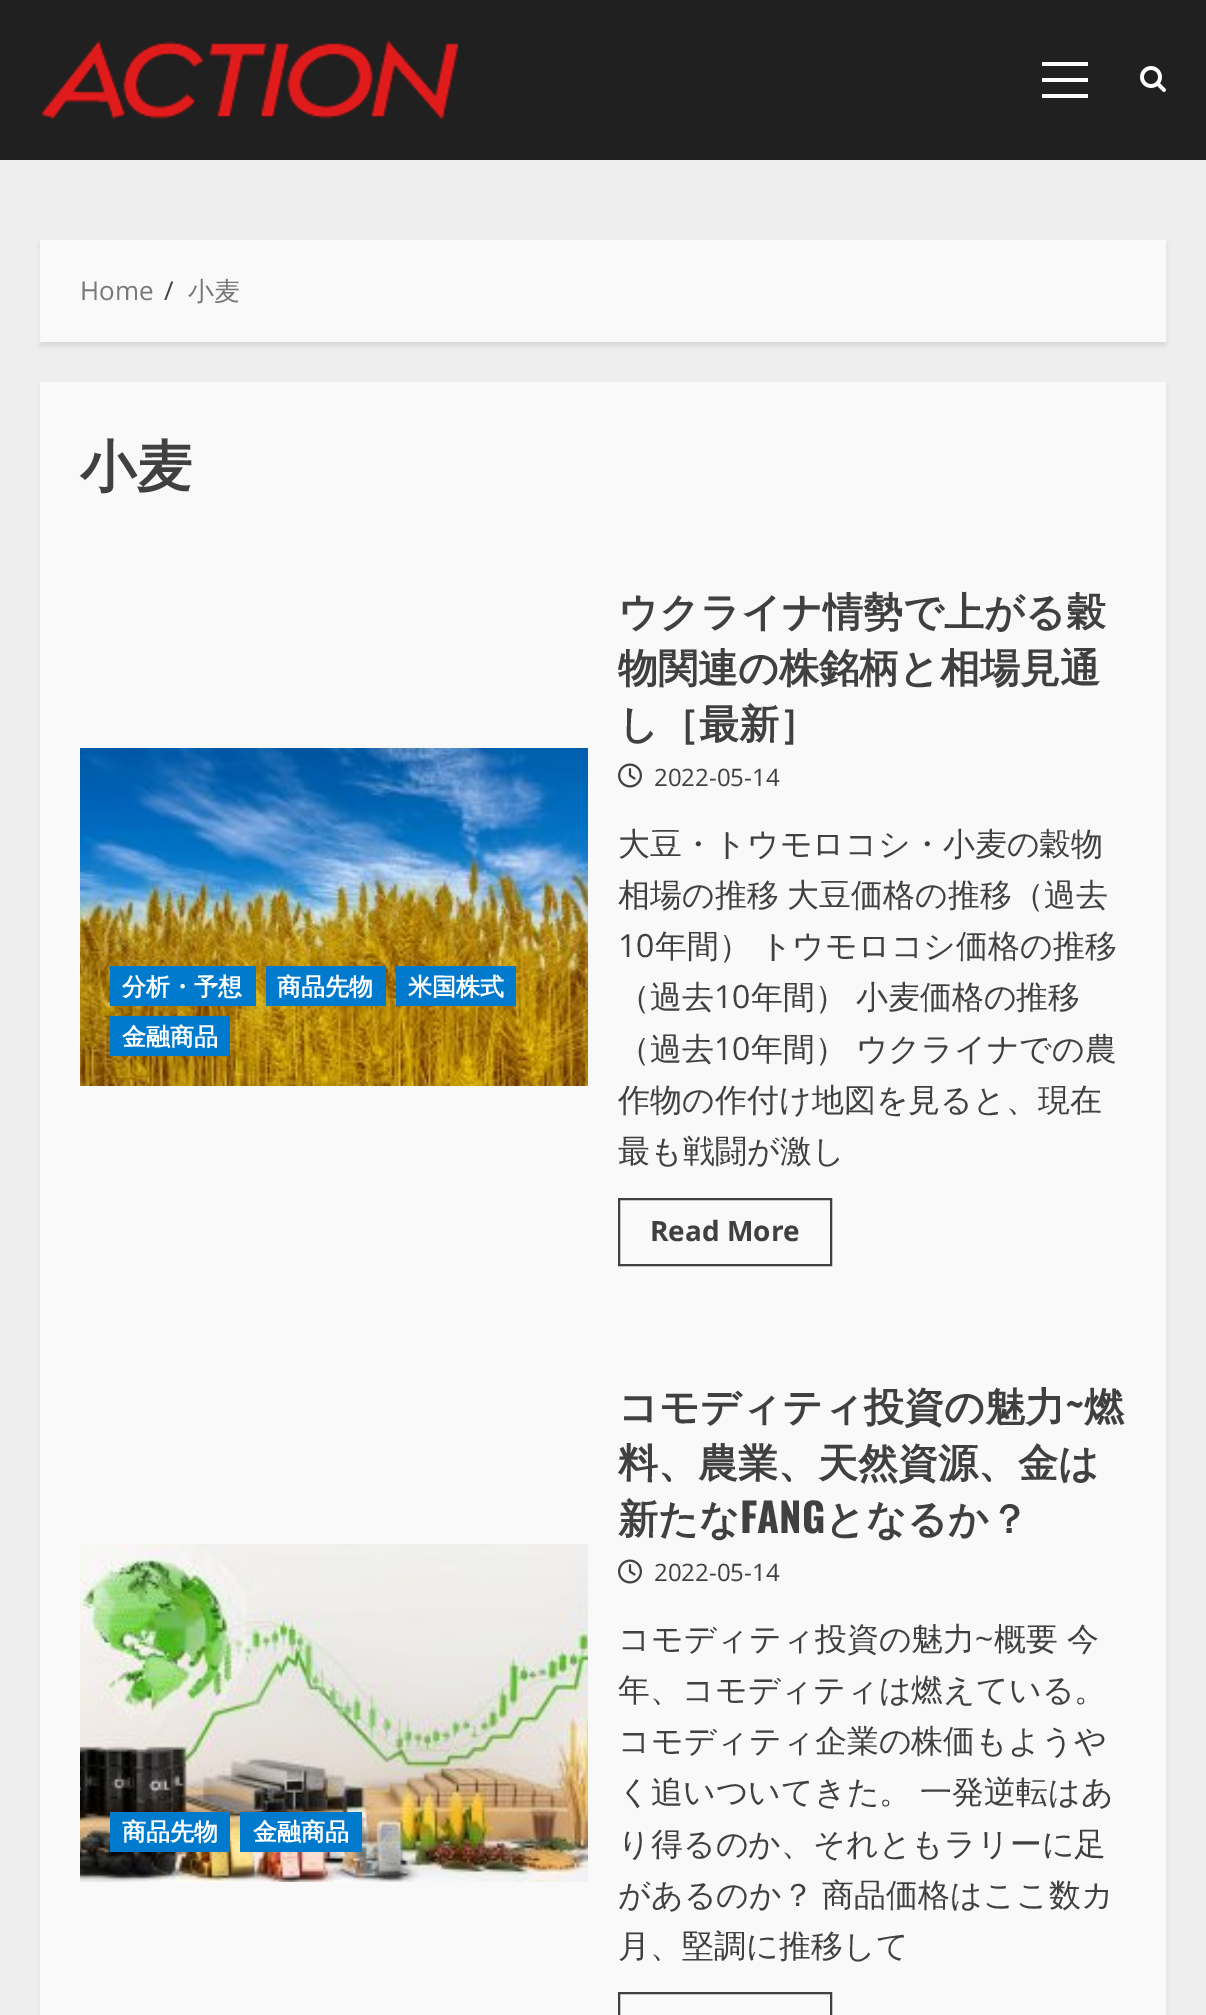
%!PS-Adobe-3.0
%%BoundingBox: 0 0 1206 2015
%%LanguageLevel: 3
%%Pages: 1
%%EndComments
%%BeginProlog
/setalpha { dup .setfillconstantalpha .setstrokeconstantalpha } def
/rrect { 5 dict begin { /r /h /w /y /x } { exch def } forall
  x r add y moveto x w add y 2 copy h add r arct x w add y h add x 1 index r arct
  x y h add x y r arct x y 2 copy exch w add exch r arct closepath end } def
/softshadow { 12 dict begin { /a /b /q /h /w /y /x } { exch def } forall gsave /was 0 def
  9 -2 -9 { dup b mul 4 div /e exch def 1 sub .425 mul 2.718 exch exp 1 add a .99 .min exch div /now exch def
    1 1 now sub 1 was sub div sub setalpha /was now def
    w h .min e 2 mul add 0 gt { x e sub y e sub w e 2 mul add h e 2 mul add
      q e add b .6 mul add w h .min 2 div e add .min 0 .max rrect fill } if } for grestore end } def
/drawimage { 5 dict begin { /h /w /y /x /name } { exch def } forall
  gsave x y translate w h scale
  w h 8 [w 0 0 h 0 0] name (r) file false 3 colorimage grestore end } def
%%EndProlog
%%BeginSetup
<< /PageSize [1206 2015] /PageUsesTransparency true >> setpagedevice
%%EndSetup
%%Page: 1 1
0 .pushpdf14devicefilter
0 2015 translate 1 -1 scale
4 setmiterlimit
0.933 setgray
0 0 1206 2015 rectfill
0.125 setgray
0 0 1206 160 rectfill
(images/1.raw) 40 40 418 80 drawimage
1 setgray
1042 78 46 4 rectfill
1042 62 46 4 rectfill
1042 94 46 4 rectfill
(images/2.raw) 1140 66 26 26 drawimage
0 setgray
40 244 1126 102 0 2 0.08 softshadow
0.976 setgray
40 240 1126 102 rectfill
0 setgray
40 386 1126 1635 0 2 0.08 softshadow
0.976 setgray
40 382 1126 1633 rectfill
(images/3.raw) 80 748 508 338 drawimage
0 0.478 0.8 setrgbcolor
110 966 146 40 rectfill
266 966 120 40 rectfill
396 966 120 40 rectfill
110 1016 120 40 rectfill
(images/4.raw) 618 763 24 25 drawimage
0.251 setgray
2 setlinewidth
619 1199 212 66 rectstroke
(images/5.raw) 80 1544 508 338 drawimage
0 0.478 0.8 setrgbcolor
110 1812 120 40 rectfill
240 1812 122 40 rectfill
(images/4.raw) 618 1559 24 25 drawimage
0.251 setgray
619 1993 212 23 rectstroke
/OpenSans-Regular [26 0 0 -26 0 0] selectfont
0.471 setgray
80 300 moveto (Home) show
0.251 setgray
164 300 moveto (/) show
/WenQuanYiZenHei-Medium [26 0 0 -26 0 0] selectfont
0.471 setgray
188 300 moveto (小麦) show
/WenQuanYiZenHei-Bold [56 0 0 -56 0 0] selectfont
0.251 setgray
80 486 moveto (小麦) show
/WenQuanYiZenHei-Bold [24 0 0 -24 0 0] selectfont
1 setgray
122 995 moveto (分析・予想) show
277 995 moveto (商品先物) show
408 995 moveto (米国株式) show
122 1045 moveto (金融商品) show
/WenQuanYiZenHei-Bold [40 0 0 -40 0 0] selectfont
0.251 setgray
618 626 moveto (ウクライナ情勢で上がる穀) show
618 682 moveto (物関連の株銘柄と相場見通) show
618 738 moveto (し［最新］) show
/OpenSans-Regular [24 0 0 -24 0 0] selectfont
654 786 moveto (2022-05-14) show
/WenQuanYiZenHei-Medium [32 0 0 -32 0 0] selectfont
618 855 moveto (大豆・トウモロコシ・小麦の穀物) show
618 906 moveto -1 0 32 (相場の推移 大豆価格の推移（過去) widthshow
/OpenSans-Regular [32 0 0 -32 0 0] selectfont
618 957 moveto (10) show
/WenQuanYiZenHei-Medium [32 0 0 -32 0 0] selectfont
655 957 moveto -1 0 32 (年間） トウモロコシ価格の推移) widthshow
618 1008 moveto (（過去) show
/OpenSans-Regular [32 0 0 -32 0 0] selectfont
714 1008 moveto (10) show
/WenQuanYiZenHei-Medium [32 0 0 -32 0 0] selectfont
751 1008 moveto -1 0 32 (年間） 小麦価格の推移) widthshow
618 1060 moveto (（過去) show
/OpenSans-Regular [32 0 0 -32 0 0] selectfont
714 1060 moveto (10) show
/WenQuanYiZenHei-Medium [32 0 0 -32 0 0] selectfont
751 1060 moveto -1 0 32 (年間） ウクライナでの農) widthshow
618 1111 moveto (作物の作付け地図を見ると、現在) show
618 1162 moveto (最も戦闘が激し) show
/OpenSans-Bold [28 0 0 -28 0 0] selectfont
650 1241 moveto (Read More) show
/WenQuanYiZenHei-Bold [24 0 0 -24 0 0] selectfont
1 setgray
122 1840 moveto (商品先物) show
253 1840 moveto (金融商品) show
/WenQuanYiZenHei-Bold [40 0 0 -40 0 0] selectfont
0.251 setgray
618 1421 moveto (コモディティ投資の魅力) show
/Oswald-Bold [40 0 0 -40 0 0] selectfont
1065 1421 moveto (~) show
/WenQuanYiZenHei-Bold [40 0 0 -40 0 0] selectfont
1084 1421 moveto (燃) show
618 1477 moveto (料、農業、天然資源、金は) show
618 1533 moveto (新たな) show
/Oswald-Bold [40 0 0 -40 0 0] selectfont
740 1533 moveto (FANG) show
/WenQuanYiZenHei-Bold [40 0 0 -40 0 0] selectfont
825 1533 moveto (となるか？) show
/OpenSans-Regular [24 0 0 -24 0 0] selectfont
654 1581 moveto (2022-05-14) show
/WenQuanYiZenHei-Medium [32 0 0 -32 0 0] selectfont
618 1650 moveto (コモディティ投資の魅力) show
/OpenSans-Regular [32 0 0 -32 0 0] selectfont
975 1650 moveto (~) show
/WenQuanYiZenHei-Medium [32 0 0 -32 0 0] selectfont
994 1650 moveto -1 0 32 (概要 今) widthshow
618 1701 moveto (年、コモディティは燃えている。) show
618 1752 moveto (コモディティ企業の株価もようや) show
618 1803 moveto -1 0 32 (く追いついてきた。 一発逆転はあ) widthshow
618 1855 moveto (り得るのか、それともラリーに足) show
618 1906 moveto -1 0 32 (があるのか？ 商品価格はここ数カ) widthshow
618 1957 moveto (月、堅調に推移して) show
.poppdf14devicefilter showpage
%%EOF
